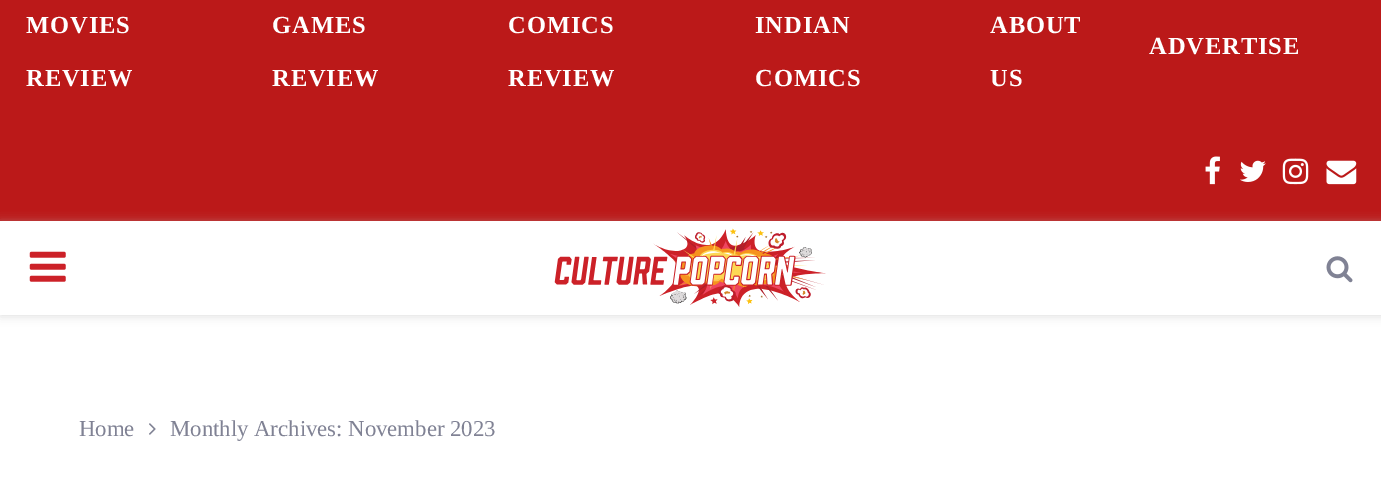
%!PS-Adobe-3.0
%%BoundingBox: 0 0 1381 479
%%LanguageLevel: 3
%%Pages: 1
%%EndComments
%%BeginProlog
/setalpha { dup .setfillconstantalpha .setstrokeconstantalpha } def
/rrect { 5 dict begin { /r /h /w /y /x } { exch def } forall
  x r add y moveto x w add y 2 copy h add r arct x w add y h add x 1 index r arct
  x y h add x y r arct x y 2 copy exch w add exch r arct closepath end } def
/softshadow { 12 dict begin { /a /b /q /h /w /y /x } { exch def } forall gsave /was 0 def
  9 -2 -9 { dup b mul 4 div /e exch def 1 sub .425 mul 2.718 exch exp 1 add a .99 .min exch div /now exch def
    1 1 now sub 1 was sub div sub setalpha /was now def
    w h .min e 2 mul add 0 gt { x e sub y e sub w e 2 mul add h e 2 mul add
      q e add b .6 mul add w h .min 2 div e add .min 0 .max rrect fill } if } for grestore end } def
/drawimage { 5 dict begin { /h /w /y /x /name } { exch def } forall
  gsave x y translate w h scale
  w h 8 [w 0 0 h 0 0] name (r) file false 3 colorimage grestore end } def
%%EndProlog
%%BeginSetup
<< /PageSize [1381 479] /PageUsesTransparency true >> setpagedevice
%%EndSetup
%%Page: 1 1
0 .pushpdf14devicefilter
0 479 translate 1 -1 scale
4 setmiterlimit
1 setgray
0 0 1381 479 rectfill
0.733 0.098 0.098 setrgbcolor
0 0 1381 221 rectfill
(images/1.raw) 1205 156 15 29 drawimage
(images/2.raw) 1240 160 26 22 drawimage
(images/3.raw) 1282 158 27 27 drawimage
(images/4.raw) 1326 160 31 25 drawimage
gsave
newpath 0 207 moveto 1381 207 lineto 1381 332 lineto 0 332 lineto closepath 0 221 moveto 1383 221 lineto 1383 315 lineto 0 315 lineto closepath eoclip newpath
0.745 setgray
0 222 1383 95 0 4.5 0.46 softshadow
grestore
(images/5.raw) 29 251 37 31 drawimage
(images/6.raw) 554 228 272 79 drawimage
(images/7.raw) 1326 256 27 27 drawimage
(images/8.raw) 149 423 7 12 drawimage
/LiberationSerif-Bold [24.5 0 0 -24.5 0 0] selectfont
1 setgray
26 33 moveto 0.9 0 (MOVIES) ashow
26 86 moveto 0.9 0 (REVIEW) ashow
272 33 moveto 0.9 0 (GAMES) ashow
272 86 moveto 0.9 0 (REVIEW) ashow
508 33 moveto 0.9 0 (COMICS) ashow
508 86 moveto 0.9 0 (REVIEW) ashow
755 33 moveto 0.9 0 (INDIAN) ashow
755 86 moveto 0.9 0 (COMICS) ashow
990 33 moveto 0.9 0 (ABOUT) ashow
990 86 moveto 0.9 0 (US) ashow
1149 54 moveto 0.9 0 (ADVERTISE) ashow
/LiberationSerif-Regular [22.75 0 0 -22.75 0 0] selectfont
0.502 0.51 0.58 setrgbcolor
79 436 moveto (Home) show
170 436 moveto (Monthly Archives: November 2023) show
.poppdf14devicefilter showpage
%%EOF
